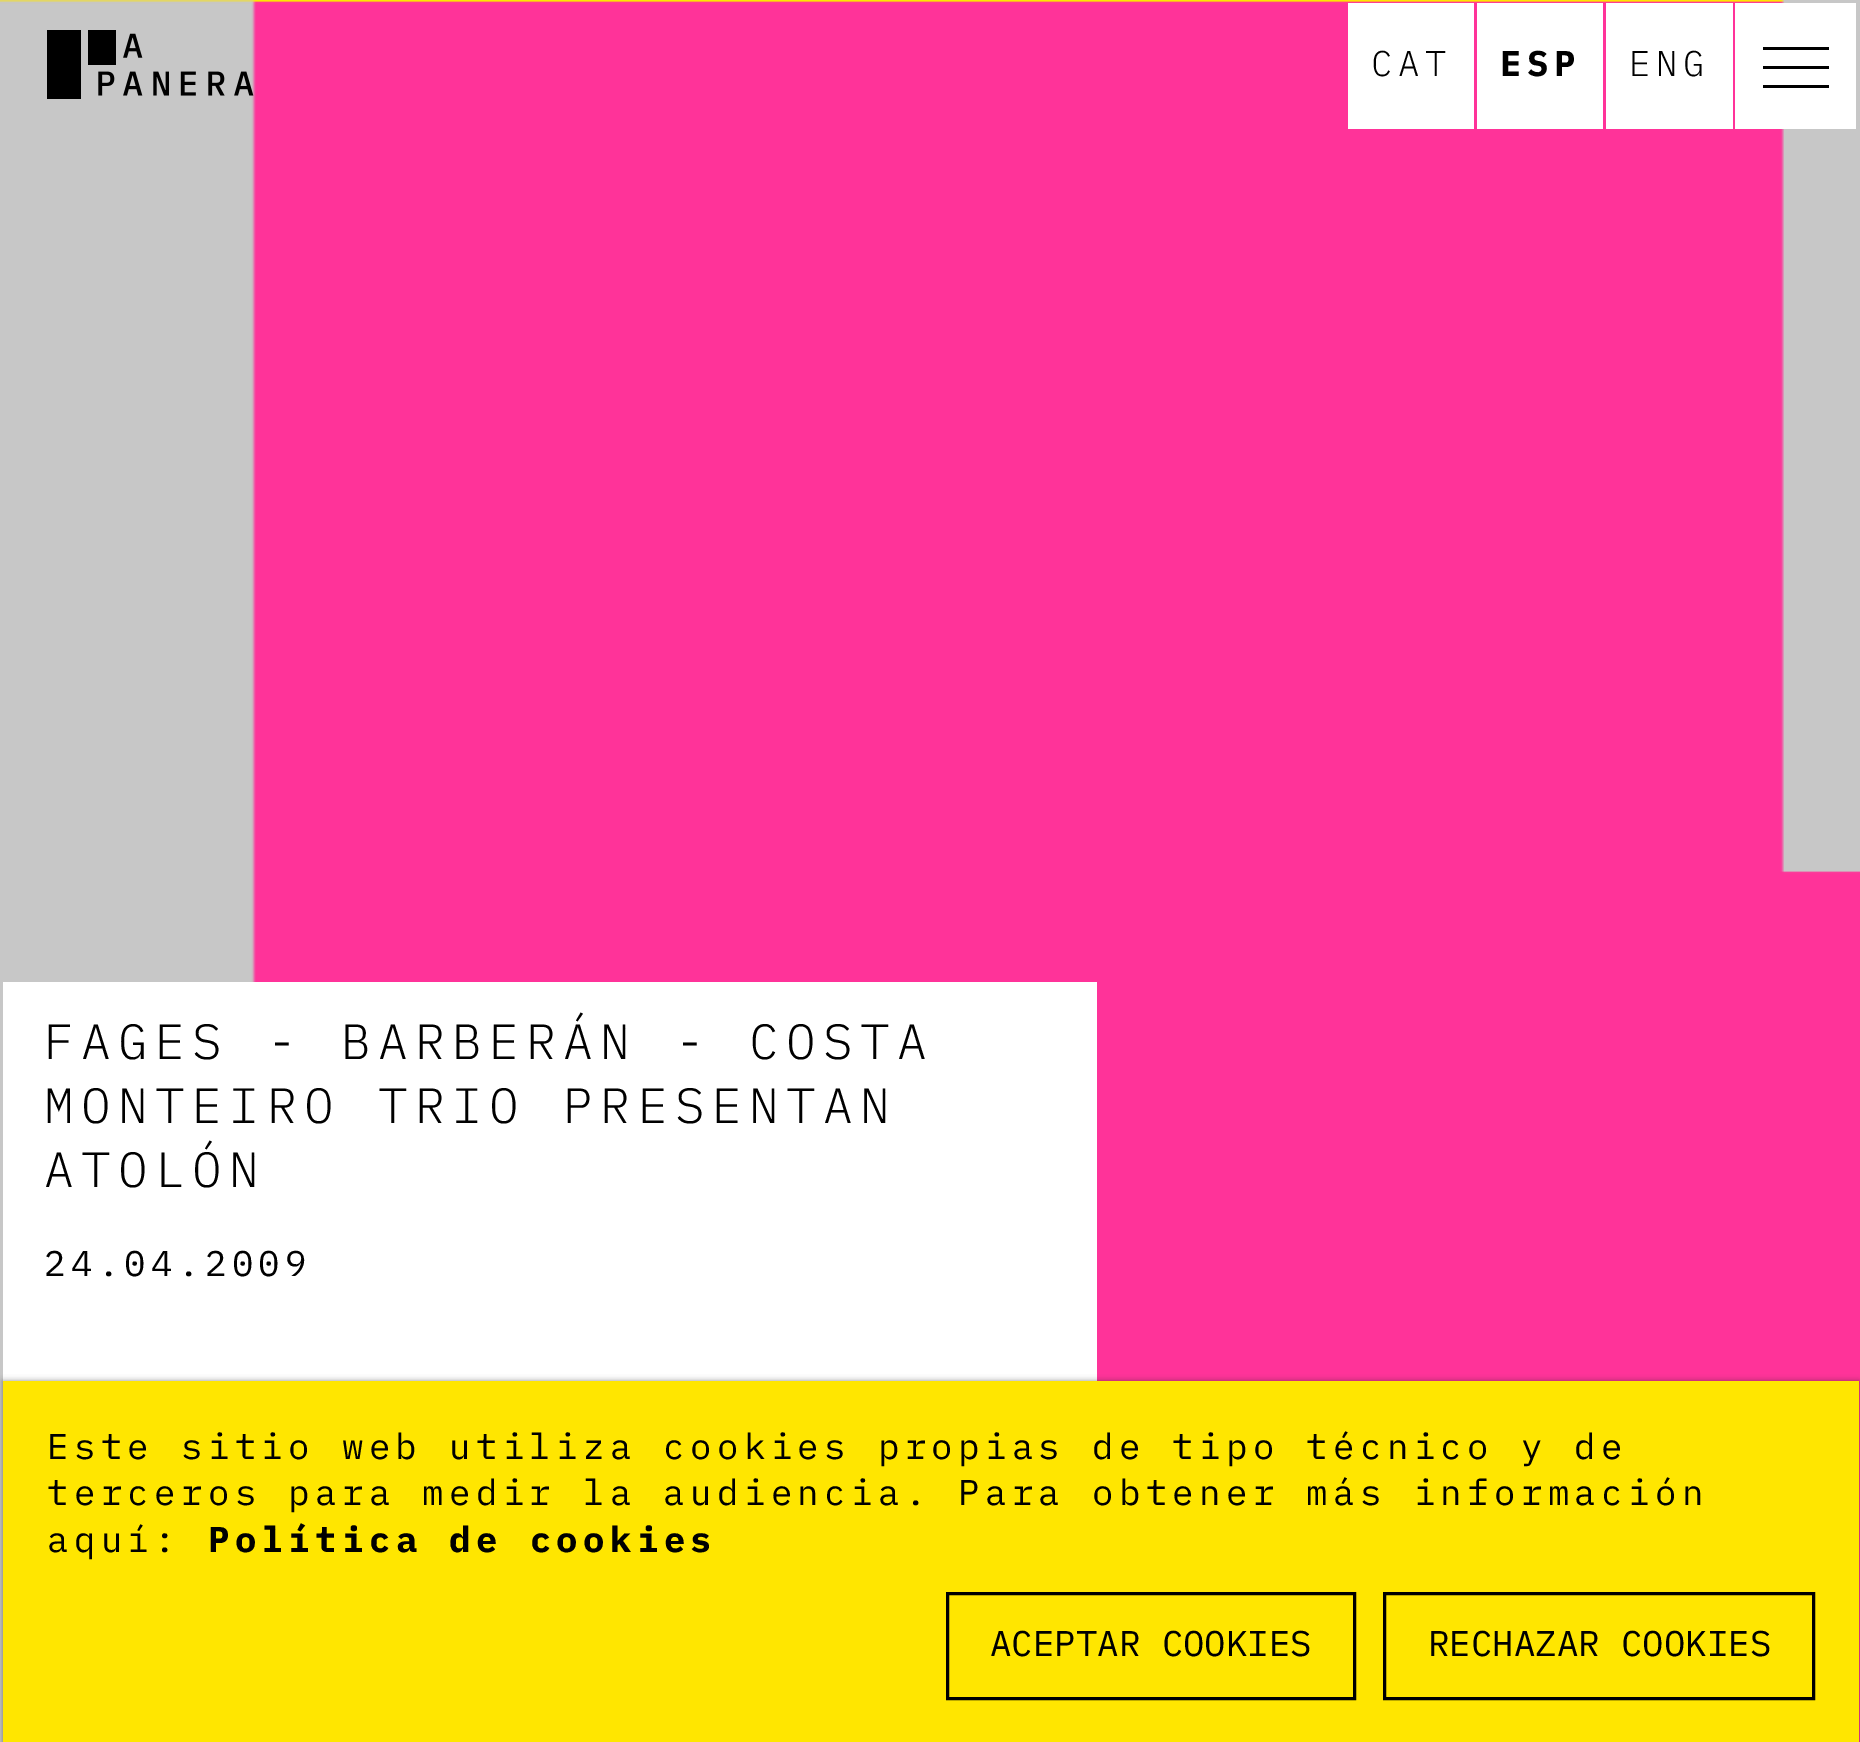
%!PS-Adobe-3.0
%%BoundingBox: 0 0 1860 1742
%%LanguageLevel: 3
%%Pages: 1
%%EndComments
%%BeginProlog
/setalpha { dup .setfillconstantalpha .setstrokeconstantalpha } def
/rrect { 5 dict begin { /r /h /w /y /x } { exch def } forall
  x r add y moveto x w add y 2 copy h add r arct x w add y h add x 1 index r arct
  x y h add x y r arct x y 2 copy exch w add exch r arct closepath end } def
/softshadow { 12 dict begin { /a /b /q /h /w /y /x } { exch def } forall gsave /was 0 def
  9 -2 -9 { dup b mul 4 div /e exch def 1 sub .425 mul 2.718 exch exp 1 add a .99 .min exch div /now exch def
    1 1 now sub 1 was sub div sub setalpha /was now def
    w h .min e 2 mul add 0 gt { x e sub y e sub w e 2 mul add h e 2 mul add
      q e add b .6 mul add w h .min 2 div e add .min 0 .max rrect fill } if } for grestore end } def
/drawimage { 5 dict begin { /h /w /y /x /name } { exch def } forall
  gsave x y translate w h scale
  w h 8 [w 0 0 h 0 0] name (r) file false 3 colorimage grestore end } def
%%EndProlog
%%BeginSetup
<< /PageSize [1860 1742] /PageUsesTransparency true >> setpagedevice
%%EndSetup
%%Page: 1 1
0 .pushpdf14devicefilter
0 1742 translate 1 -1 scale
4 setmiterlimit
1 0.902 0 setrgbcolor
0 0 1860 1742 rectfill
(images/2.raw) 0 0 1860 1742 drawimage
(images/1.raw) 47 30 207 69 drawimage
1 setgray
1348 3 126 126 rectfill
1477 3 126 126 rectfill
1606 3 127 126 rectfill
1735 3 121 126 rectfill
0 setgray
1763 66 66 3 rectfill
1763 47 66 3 rectfill
1763 85 66 3 rectfill
1 setgray
3 982 1094 399 rectfill
0.133 setgray
3 1381 1856 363 0 3 0.5 softshadow
1 0.902 0 setrgbcolor
3 1381 1856 361 rectfill
0 setgray
3 setlinewidth
947.5 1593.5 407 105 rectstroke
1384.5 1593.5 429 105 rectstroke
/IBMPlexMono-Light [35.75 0 0 -35.75 0 0] selectfont
1371 76 moveto 5.35 0 (CAT) ashow
/IBMPlexMono-Bold [35.75 0 0 -35.75 0 0] selectfont
1500 76 moveto 5.35 0 (ESP) ashow
/IBMPlexMono-Light [35.75 0 0 -35.75 0 0] selectfont
1629 76 moveto 5.35 0 (ENG) ashow
/IBMPlexMono-Light [49.5 0 0 -49.5 0 0] selectfont
44 1059 moveto 7.4 0 (FAGES - BARBERÁN - COSTA) ashow
44 1123 moveto 7.4 0 (MONTEIRO TRIO PRESENTAN) ashow
44 1187 moveto 7.4 0 (ATOLÓN) ashow
/IBMPlexMono-Regular [35.75 0 0 -35.75 0 0] selectfont
44 1276 moveto 5.35 0 (24.04.2009) ashow
47 1459 moveto 5.35 0 (Este sitio web utiliza cookies propias de tipo técnico y de) ashow
47 1505 moveto 5.35 0 (terceros para medir la audiencia. Para obtener más información) ashow
47 1552 moveto 5.35 0 (aquí:) ashow
/IBMPlexMono-Bold [35.75 0 0 -35.75 0 0] selectfont
208 1552 moveto 5.35 0 (Política de cookies) ashow
/IBMPlexMono-Regular [35.75 0 0 -35.75 0 0] selectfont
990 1656 moveto (ACEPTAR COOKIES) show
1428 1656 moveto (RECHAZAR COOKIES) show
.poppdf14devicefilter showpage
%%EOF
